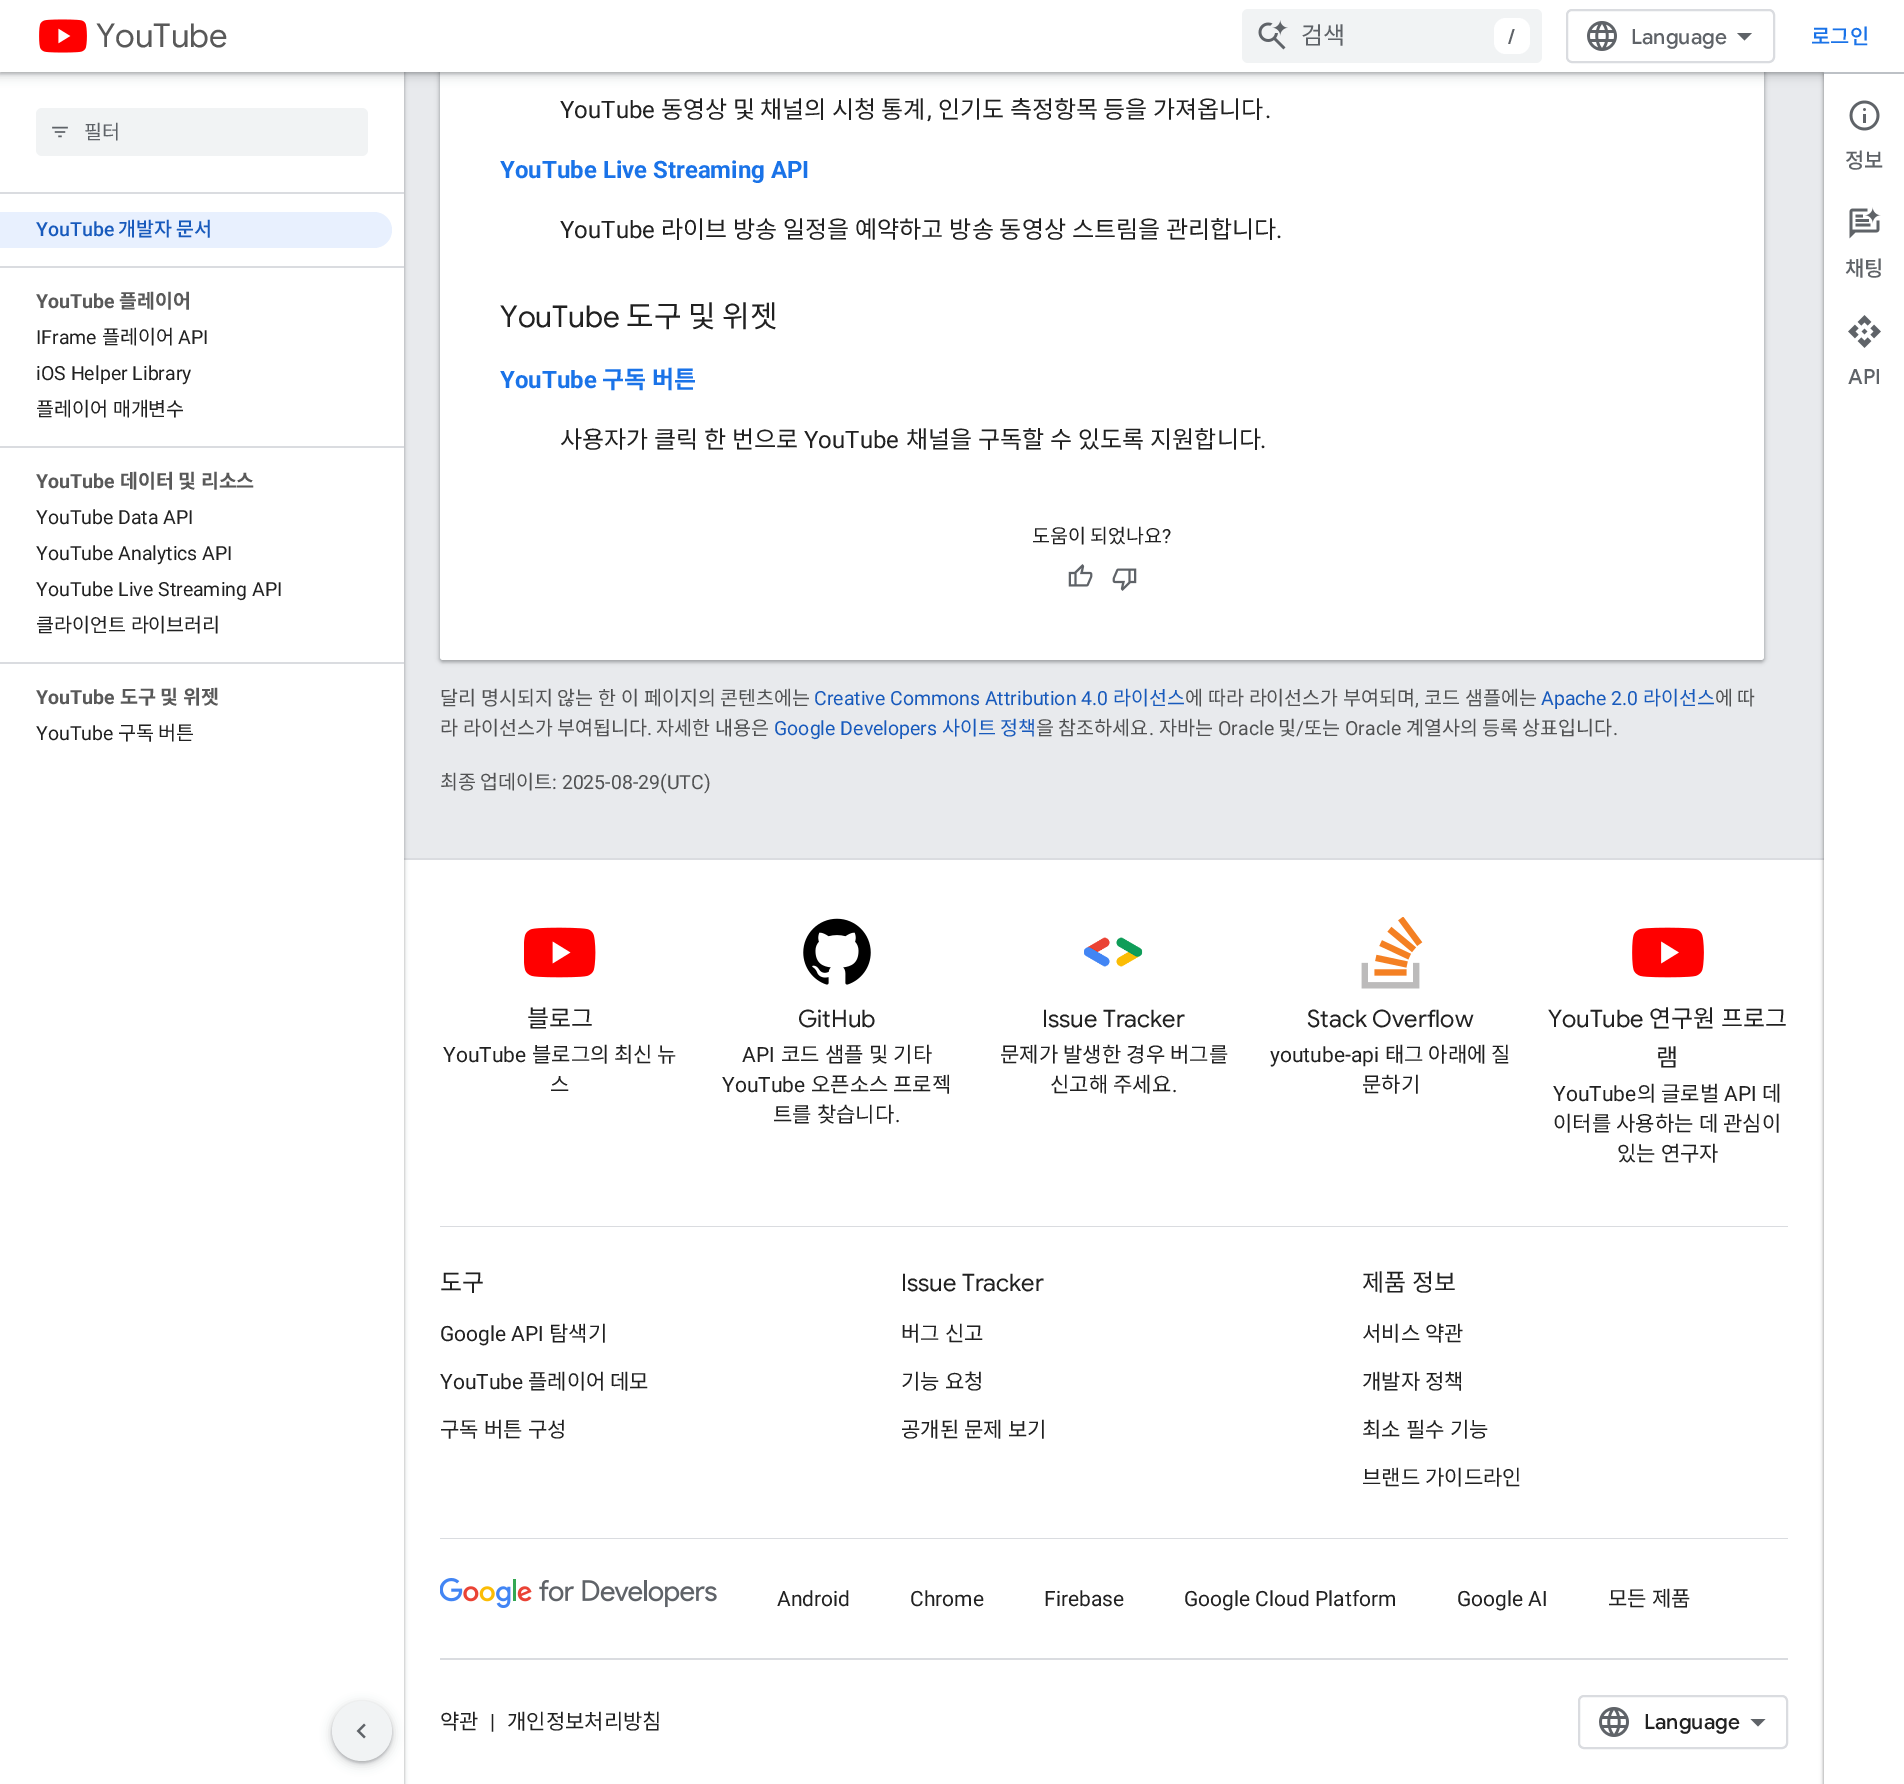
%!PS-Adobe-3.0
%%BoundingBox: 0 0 1904 1784
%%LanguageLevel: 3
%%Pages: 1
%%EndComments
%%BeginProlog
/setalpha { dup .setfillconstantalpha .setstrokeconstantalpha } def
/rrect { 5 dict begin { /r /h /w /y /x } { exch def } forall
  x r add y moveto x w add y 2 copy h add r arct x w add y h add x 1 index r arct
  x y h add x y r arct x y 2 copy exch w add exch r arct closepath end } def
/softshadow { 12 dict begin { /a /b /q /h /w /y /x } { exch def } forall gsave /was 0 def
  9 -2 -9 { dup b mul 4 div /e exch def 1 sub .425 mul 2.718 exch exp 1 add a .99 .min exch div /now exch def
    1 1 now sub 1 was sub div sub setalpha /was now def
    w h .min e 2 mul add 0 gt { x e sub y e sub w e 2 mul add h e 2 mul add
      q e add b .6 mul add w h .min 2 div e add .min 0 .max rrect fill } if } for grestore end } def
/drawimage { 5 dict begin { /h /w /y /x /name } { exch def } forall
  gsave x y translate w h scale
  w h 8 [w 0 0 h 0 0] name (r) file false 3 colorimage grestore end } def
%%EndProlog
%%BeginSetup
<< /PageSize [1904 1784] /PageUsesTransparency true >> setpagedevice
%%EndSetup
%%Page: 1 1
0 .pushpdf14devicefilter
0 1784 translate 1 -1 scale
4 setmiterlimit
0.91 0.918 0.929 setrgbcolor
0 0 1904 1784 rectfill
1 setgray
404 860 1420 924 rectfill
0.855 0.863 0.878 setrgbcolor
404 858 1420 2 rectfill
0.235 0.251 0.263 setrgbcolor
-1 0 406 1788 0 2 0.15 softshadow
0 2 404 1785 0 1.5 0.3 softshadow
1 setgray
0 72 404 1712 rectfill
0.235 0.251 0.263 setrgbcolor
438 -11 1328 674 5 2 0.15 softshadow
440 -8 1324 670 3 1.5 0.3 softshadow
1 setgray
440 -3 1324 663 3 rrect fill
0.235 0.251 0.263 setrgbcolor
-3 0 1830 78 0 4.5 0.15 softshadow
0 2 1824 72 0 1.5 0.3 softshadow
0 setgray
1823 72 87 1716 0 2 0.15 softshadow
1824 74 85 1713 0 1.5 0.3 softshadow
1 setgray
0 0 1904 72 rectfill
(images/1.raw) 39 19 48 34 drawimage
0.945 0.953 0.957 setrgbcolor
1242 9 300 54 6 rrect fill
(images/2.raw) 1258 20 30 30 drawimage
1 setgray
1494 18 36 36 12 rrect fill
0.855 0.863 0.878 setrgbcolor
2 setlinewidth
1567 10 207 52 5 rrect stroke
(images/3.raw) 1587 21 30 30 drawimage
0.373 0.388 0.408 setrgbcolor
newpath 1744.5 40.5 moveto 1737 33 lineto 1752 33 lineto closepath fill
0.855 0.863 0.878 setrgbcolor
0 192 404 2 rectfill
0.945 0.953 0.957 setrgbcolor
36 108 332 48 6 rrect fill
(images/4.raw) 52 126 16 12 drawimage
0.91 0.941 0.996 setrgbcolor
newpath 0 212 moveto 374 212 lineto 384 212 392 220 392 230 curveto 392 240 384 248 374 248 curveto 0 248 lineto closepath fill
0.855 0.863 0.878 setrgbcolor
0 266 404 2 rectfill
0 446 404 2 rectfill
0 662 404 2 rectfill
(images/5.raw) 1068 564 25 23 drawimage
(images/6.raw) 1112 568 25 23 drawimage
1 setgray
1824 74 80 1710 rectfill
0.741 0.757 0.776 setrgbcolor
1824 72 80 2 rectfill
(images/7.raw) 1849 100 31 31 drawimage
(images/8.raw) 1849 207 32 32 drawimage
(images/9.raw) 1848 315 33 33 drawimage
0.855 0.863 0.878 setrgbcolor
440 1226 1348 1 rectfill
(images/10.raw) 524 927 72 51 drawimage
(images/11.raw) 803 918 68 67 drawimage
(images/12.raw) 1084 937 59 30 drawimage
(images/13.raw) 1361 917 62 72 drawimage
(images/14.raw) 1632 927 72 51 drawimage
440 1538 1348 1 rectfill
440 1658 1348 2 rectfill
(images/15.raw) 440 1578 277 30 drawimage
1579 1696 208 52 5 rrect stroke
(images/3.raw) 1599 1707 30 30 drawimage
0.373 0.388 0.408 setrgbcolor
newpath 1758 1726.5 moveto 1750.5 1719 lineto 1765.5 1719 lineto closepath fill
0.235 0.251 0.263 setrgbcolor
329 1701 66 66 33 4.5 0.15 softshadow
332 1703 60 60 30 1.5 0.3 softshadow
0.945 0.953 0.957 setrgbcolor
newpath 362 1731 30 0 360 arc closepath fill
(images/16.raw) 356 1723 10 16 drawimage
/GoogleSans-Regular [33 0 0 -33 0 0] selectfont
0.349 setgray
96 47 moveto (YouTube) show
/NotoSansKR-Regular [24 0 0 -24 0 0] selectfont
0.373 0.388 0.408 setrgbcolor
1301 44 moveto (검색) show
/GoogleSans-Medium [21 0 0 -21 0 0] selectfont
1508 44 moveto (/) show
1631 44 moveto (Language) show
/NotoSansKR-Medium [21 0 0 -21 0 0] selectfont
0.102 0.451 0.91 setrgbcolor
1811 44 moveto (로그인) show
/NotoSansKR-Regular [19.5 0 0 -19.5 0 0] selectfont
0.373 0.388 0.408 setrgbcolor
84 139 moveto (필터) show
/Roboto-Medium [19.5 0 0 -19.5 0 0] selectfont
0.094 0.353 0.737 setrgbcolor
36 236 moveto (YouTube) show
/NotoSansKR-Medium [19.5 0 0 -19.5 0 0] selectfont
118 236 moveto (개발자 문서) show
/Roboto-Bold [19.5 0 0 -19.5 0 0] selectfont
0.349 setgray
36 308 moveto (YouTube) show
/NotoSansKR-Bold [19.5 0 0 -19.5 0 0] selectfont
119 308 moveto (플레이어) show
/Roboto-Regular [19.5 0 0 -19.5 0 0] selectfont
0.129 setgray
36 344 moveto (IFrame) show
/NotoSansKR-Regular [19.5 0 0 -19.5 0 0] selectfont
102 344 moveto (플레이어) show
/Roboto-Regular [19.5 0 0 -19.5 0 0] selectfont
178 344 moveto (API) show
36 380 moveto (iOS Helper Library) show
/NotoSansKR-Regular [19.5 0 0 -19.5 0 0] selectfont
36 416 moveto 0.5 0 32 (플레이어 매개변수) widthshow
/Roboto-Bold [19.5 0 0 -19.5 0 0] selectfont
0.349 setgray
36 488 moveto (YouTube) show
/NotoSansKR-Bold [19.5 0 0 -19.5 0 0] selectfont
120 488 moveto (데이터 및 리소스) show
/Roboto-Regular [19.5 0 0 -19.5 0 0] selectfont
0.129 setgray
36 524 moveto (YouTube Data API) show
36 560 moveto (YouTube Analytics API) show
36 596 moveto (YouTube Live Streaming API) show
/NotoSansKR-Regular [19.5 0 0 -19.5 0 0] selectfont
36 632 moveto 0.5 0 32 (클라이언트 라이브러리) widthshow
/Roboto-Bold [19.5 0 0 -19.5 0 0] selectfont
0.349 setgray
36 704 moveto (YouTube) show
/NotoSansKR-Bold [19.5 0 0 -19.5 0 0] selectfont
120 704 moveto (도구 및 위젯) show
/Roboto-Regular [19.5 0 0 -19.5 0 0] selectfont
0.129 setgray
36 740 moveto (YouTube) show
/NotoSansKR-Regular [19.5 0 0 -19.5 0 0] selectfont
118 740 moveto (구독 버튼) show
/Roboto-Regular [24 0 0 -24 0 0] selectfont
560 118 moveto (YouTube) show
/NotoSansKR-Regular [24 0 0 -24 0 0] selectfont
661 118 moveto (동영상 및 채널의 시청 통계) show
/Roboto-Regular [24 0 0 -24 0 0] selectfont
927 118 moveto (,) show
/NotoSansKR-Regular [24 0 0 -24 0 0] selectfont
938 118 moveto (인기도 측정항목 등을 가져옵니다) show
/Roboto-Regular [24 0 0 -24 0 0] selectfont
1265 118 moveto (.) show
/Roboto-Bold [24 0 0 -24 0 0] selectfont
0.102 0.451 0.91 setrgbcolor
500 178 moveto (YouTube Live Streaming API) show
/Roboto-Regular [24 0 0 -24 0 0] selectfont
0.129 setgray
560 238 moveto (YouTube) show
/NotoSansKR-Regular [24 0 0 -24 0 0] selectfont
661 238 moveto 0.5 0 32 (라이브 방송 일정을 예약하고 방송 동영상 스트림을 관리합니다) widthshow
/Roboto-Regular [24 0 0 -24 0 0] selectfont
1276 238 moveto (.) show
/GoogleSans-Regular [30 0 0 -30 0 0] selectfont
500 327 moveto (YouTube) show
/NotoSansKR-Regular [30 0 0 -30 0 0] selectfont
626 327 moveto (도구 및 위젯) show
/Roboto-Bold [24 0 0 -24 0 0] selectfont
0.102 0.451 0.91 setrgbcolor
500 388 moveto (YouTube) show
/NotoSansKR-Bold [24 0 0 -24 0 0] selectfont
602 388 moveto (구독 버튼) show
/NotoSansKR-Regular [24 0 0 -24 0 0] selectfont
0.129 setgray
560 448 moveto 0.5 0 32 (사용자가 클릭 한 번으로) widthshow
/Roboto-Regular [24 0 0 -24 0 0] selectfont
804 448 moveto (YouTube) show
/NotoSansKR-Regular [24 0 0 -24 0 0] selectfont
906 448 moveto 0.5 0 32 (채널을 구독할 수 있도록 지원합니다) widthshow
/Roboto-Regular [24 0 0 -24 0 0] selectfont
1260 448 moveto (.) show
/NotoSansKR-Regular [19.5 0 0 -19.5 0 0] selectfont
1032 543 moveto (도움이 되었나요) show
/Roboto-Regular [19.5 0 0 -19.5 0 0] selectfont
1162 543 moveto (?) show
/NotoSansKR-Regular [19.5 0 0 -19.5 0 0] selectfont
0.318 0.322 0.325 setrgbcolor
440 705 moveto 0.5 0 32 (달리 명시되지 않는 한 이 페이지의 콘텐츠에는) widthshow
/Roboto-Regular [19.5 0 0 -19.5 0 0] selectfont
0.094 0.353 0.737 setrgbcolor
814 705 moveto (Creative Commons Attribution 4.0) show
/NotoSansKR-Regular [19.5 0 0 -19.5 0 0] selectfont
1113 705 moveto (라이선스) show
0.318 0.322 0.325 setrgbcolor
1185 705 moveto 0.5 0 32 (에 따라 라이선스가 부여되며) widthshow
/Roboto-Regular [19.5 0 0 -19.5 0 0] selectfont
1415 705 moveto (,) show
/NotoSansKR-Regular [19.5 0 0 -19.5 0 0] selectfont
1424 705 moveto 0.5 0 32 (코드 샘플에는) widthshow
/Roboto-Regular [19.5 0 0 -19.5 0 0] selectfont
0.094 0.353 0.737 setrgbcolor
1541 705 moveto (Apache 2.0) show
/NotoSansKR-Regular [19.5 0 0 -19.5 0 0] selectfont
1643 705 moveto (라이선스) show
0.318 0.322 0.325 setrgbcolor
1715 705 moveto (에 따) show
440 735 moveto 0.5 0 32 (라 라이선스가 부여됩니다) widthshow
/Roboto-Regular [19.5 0 0 -19.5 0 0] selectfont
647 735 moveto (.) show
/NotoSansKR-Regular [19.5 0 0 -19.5 0 0] selectfont
656 735 moveto 0.5 0 32 (자세한 내용은) widthshow
/Roboto-Regular [19.5 0 0 -19.5 0 0] selectfont
0.094 0.353 0.737 setrgbcolor
774 735 moveto (Google Developers) show
/NotoSansKR-Regular [19.5 0 0 -19.5 0 0] selectfont
942 735 moveto (사이트) show
1000 735 moveto (정책) show
0.318 0.322 0.325 setrgbcolor
1036 735 moveto (을 참조하세요) show
/Roboto-Regular [19.5 0 0 -19.5 0 0] selectfont
1149 735 moveto (.) show
/NotoSansKR-Regular [19.5 0 0 -19.5 0 0] selectfont
1159 735 moveto (자바는) show
/Roboto-Regular [19.5 0 0 -19.5 0 0] selectfont
1218 735 moveto (Oracle) show
/NotoSansKR-Regular [19.5 0 0 -19.5 0 0] selectfont
1278 735 moveto (및) show
/Roboto-Regular [19.5 0 0 -19.5 0 0] selectfont
1296 735 moveto (/) show
/NotoSansKR-Regular [19.5 0 0 -19.5 0 0] selectfont
1304 735 moveto (또는) show
/Roboto-Regular [19.5 0 0 -19.5 0 0] selectfont
1345 735 moveto (Oracle) show
/NotoSansKR-Regular [19.5 0 0 -19.5 0 0] selectfont
1406 735 moveto (계열사의 등록 상표입니다) show
/Roboto-Regular [19.5 0 0 -19.5 0 0] selectfont
1613 735 moveto (.) show
/NotoSansKR-Regular [19.5 0 0 -19.5 0 0] selectfont
440 789 moveto (최종) show
480 789 moveto (업데이트) show
/Roboto-Regular [19.5 0 0 -19.5 0 0] selectfont
552 789 moveto (: 2025-08-29\(UTC\)) show
/NotoSansKR-Medium [21 0 0 -21 0 0] selectfont
0.373 0.388 0.408 setrgbcolor
1845 168 moveto (정보) show
1845 276 moveto (채팅) show
/GoogleSans-Medium [21 0 0 -21 0 0] selectfont
1848 384 moveto (API) show
/NotoSansKR-Regular [24 0 0 -24 0 0] selectfont
0.129 setgray
527 1027 moveto (블로그) show
/Roboto-Regular [21 0 0 -21 0 0] selectfont
443 1062 moveto (YouTube) show
/NotoSansKR-Regular [21 0 0 -21 0 0] selectfont
532 1062 moveto (블로그의 최신 뉴) show
550 1092 moveto (스) show
/GoogleSans-Regular [24 0 0 -24 0 0] selectfont
798 1027 moveto (GitHub) show
/Roboto-Regular [21 0 0 -21 0 0] selectfont
742 1062 moveto (API) show
/NotoSansKR-Regular [21 0 0 -21 0 0] selectfont
781 1062 moveto 0.5 0 32 (코드 샘플 및 기타) widthshow
/Roboto-Regular [21 0 0 -21 0 0] selectfont
722 1092 moveto (YouTube) show
/NotoSansKR-Regular [21 0 0 -21 0 0] selectfont
811 1092 moveto (오픈소스 프로젝) show
773 1122 moveto 0.5 0 32 (트를 찾습니다) widthshow
/Roboto-Regular [21 0 0 -21 0 0] selectfont
895 1122 moveto (.) show
/GoogleSans-Regular [24 0 0 -24 0 0] selectfont
1042 1027 moveto (Issue Tracker) show
/NotoSansKR-Regular [21 0 0 -21 0 0] selectfont
1000 1062 moveto 0.5 0 32 (문제가 발생한 경우 버그를) widthshow
1050 1092 moveto 0.5 0 32 (신고해 주세요) widthshow
/Roboto-Regular [21 0 0 -21 0 0] selectfont
1172 1092 moveto (.) show
/GoogleSans-Regular [24 0 0 -24 0 0] selectfont
1307 1027 moveto (Stack Overflow) show
/Roboto-Regular [21 0 0 -21 0 0] selectfont
1270 1062 moveto (youtube-api) show
/NotoSansKR-Regular [21 0 0 -21 0 0] selectfont
1385 1062 moveto (태그 아래에 질) show
1362 1092 moveto (문하기) show
/GoogleSans-Regular [24 0 0 -24 0 0] selectfont
1548 1027 moveto (YouTube) show
/NotoSansKR-Regular [24 0 0 -24 0 0] selectfont
1649 1027 moveto (연구원 프로그) show
1656 1066 moveto (램) show
/Roboto-Regular [21 0 0 -21 0 0] selectfont
1553 1101 moveto (YouTube) show
/NotoSansKR-Regular [21 0 0 -21 0 0] selectfont
1637 1101 moveto (의 글로벌) show
/Roboto-Regular [21 0 0 -21 0 0] selectfont
1724 1101 moveto (API) show
/NotoSansKR-Regular [21 0 0 -21 0 0] selectfont
1762 1101 moveto (데) show
1553 1131 moveto 0.5 0 32 (이터를 사용하는 데 관심이) widthshow
1617 1161 moveto 0.5 0 32 (있는 연구자) widthshow
/NotoSansKR-Regular [24 0 0 -24 0 0] selectfont
440 1291 moveto (도구) show
/Roboto-Regular [21 0 0 -21 0 0] selectfont
440 1341 moveto (Google API) show
/NotoSansKR-Regular [21 0 0 -21 0 0] selectfont
549 1341 moveto (탐색기) show
/Roboto-Regular [21 0 0 -21 0 0] selectfont
440 1389 moveto (YouTube) show
/NotoSansKR-Regular [21 0 0 -21 0 0] selectfont
528 1389 moveto (플레이어 데모) show
440 1437 moveto 0.5 0 32 (구독 버튼 구성) widthshow
/GoogleSans-Regular [24 0 0 -24 0 0] selectfont
901 1291 moveto (Issue Tracker) show
/NotoSansKR-Regular [21 0 0 -21 0 0] selectfont
901 1341 moveto 0.5 0 32 (버그 신고) widthshow
901 1389 moveto 0.5 0 32 (기능 요청) widthshow
901 1437 moveto 0.5 0 32 (공개된 문제 보기) widthshow
/NotoSansKR-Regular [24 0 0 -24 0 0] selectfont
1362 1291 moveto (제품 정보) show
/NotoSansKR-Regular [21 0 0 -21 0 0] selectfont
1362 1341 moveto 0.5 0 32 (서비스 약관) widthshow
1362 1389 moveto 0.5 0 32 (개발자 정책) widthshow
1362 1437 moveto 0.5 0 32 (최소 필수 기능) widthshow
1362 1485 moveto 0.5 0 32 (브랜드 가이드라인) widthshow
/Roboto-Regular [21 0 0 -21 0 0] selectfont
777 1606 moveto (Android) show
910 1606 moveto (Chrome) show
1044 1606 moveto (Firebase) show
1184 1606 moveto (Google Cloud Platform) show
1457 1606 moveto (Google AI) show
/NotoSansKR-Regular [21 0 0 -21 0 0] selectfont
1608 1606 moveto 0.5 0 32 (모든 제품) widthshow
440 1729 moveto (약관) show
/Roboto-Regular [21 0 0 -21 0 0] selectfont
490 1729 moveto (|) show
/NotoSansKR-Regular [21 0 0 -21 0 0] selectfont
507 1729 moveto (개인정보처리방침) show
/GoogleSans-Medium [21 0 0 -21 0 0] selectfont
1644 1729 moveto (Language) show
.poppdf14devicefilter showpage
%%EOF
